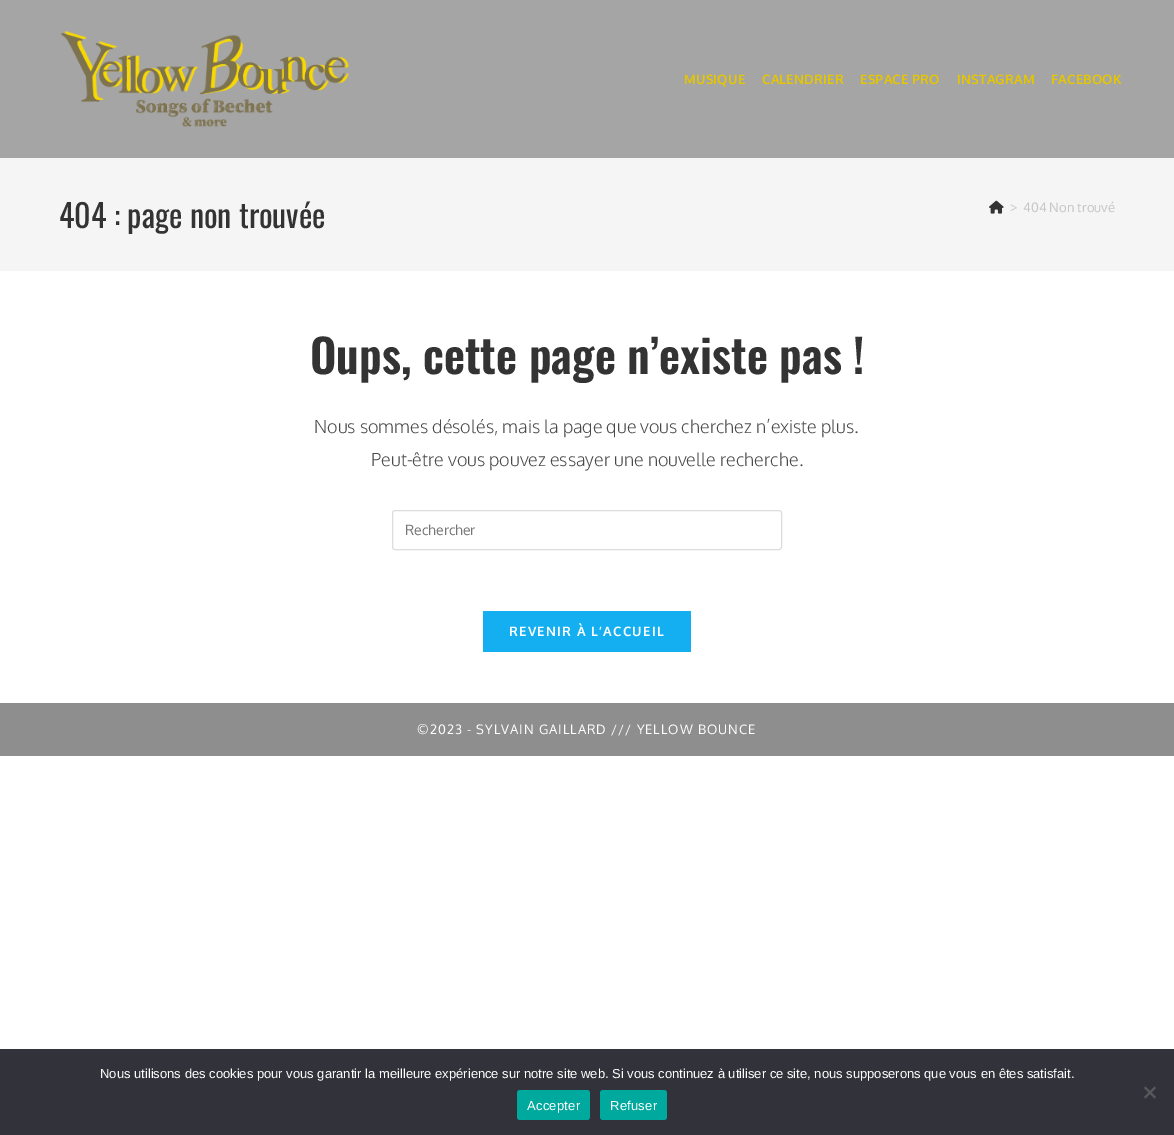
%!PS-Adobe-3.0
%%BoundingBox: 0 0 1174 1135
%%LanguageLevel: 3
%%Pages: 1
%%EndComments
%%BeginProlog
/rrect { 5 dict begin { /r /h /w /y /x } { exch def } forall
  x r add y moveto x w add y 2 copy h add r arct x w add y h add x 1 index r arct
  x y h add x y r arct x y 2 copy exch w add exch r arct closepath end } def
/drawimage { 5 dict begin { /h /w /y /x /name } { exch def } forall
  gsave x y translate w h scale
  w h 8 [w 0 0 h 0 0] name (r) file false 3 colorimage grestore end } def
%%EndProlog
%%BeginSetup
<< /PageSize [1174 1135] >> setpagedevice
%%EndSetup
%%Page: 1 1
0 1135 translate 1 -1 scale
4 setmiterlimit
1 setgray
0 0 1174 1135 rectfill
0.647 setgray
0 0 1174 158 rectfill
(images/1.raw) 61 31 288 96 drawimage
0.961 setgray
0 158 1174 113 rectfill
(images/2.raw) 989 200 15 14 drawimage
0.867 setgray
392.5 510.5 389 39 2.5 rrect stroke
0.075 0.686 0.941 setrgbcolor
483 611 208 41 rectfill
0.557 setgray
0 703 1174 53 rectfill
0.196 0.196 0.227 setrgbcolor
0 1049 1174 86 rectfill
0.349 0.349 0.365 setrgbcolor
newpath 1154.5 1086.5 moveto 1156 1088 lineto 1145.5 1098.5 lineto 1144 1097 lineto closepath fill
newpath 1144 1088 moveto 1145.5 1086.5 lineto 1156 1097 lineto 1154.5 1098.5 lineto closepath fill
0 0.663 0.616 setrgbcolor
517 1090 73 30 3 rrect fill
600 1090 67 30 3 rrect fill
/Oxygen-Bold [13 0 0 -13 0 0] selectfont
0.898 0.776 0 setrgbcolor
684 84 moveto 0.25 0 (MUSIQUE) ashow
762 84 moveto 0.25 0 (CALENDRIER) ashow
860 84 moveto 0.25 0 (ESPACE PRO) ashow
957 84 moveto 0.25 0 (INSTAGRAM) ashow
1051 84 moveto 0.25 0 (FACEBOOK) ashow
/Oswald-Regular [32 0 0 -32 0 0] selectfont
0.2 setgray
59 228 moveto (404 : page non trouvée) show
/Oxygen-Regular [13 0 0 -13 0 0] selectfont
0.776 setgray
1010 212 moveto (>) show
1023 212 moveto (404 Non trouvé) show
/Oswald-SemiBold [46 0 0 -46 0 0] selectfont
0.2 setgray
310 374 moveto (Oups, cette page n’existe pas !) show
/Oxygen-Light [18 0 0 -18 0 0] selectfont
0.29 setgray
314 433 moveto (Nous sommes désolés, mais la page que vous cherchez n’existe plus.) show
371 466 moveto (Peut-être vous pouvez essayer une nouvelle recherche.) show
/Oxygen-Regular [14 0 0 -14 0 0] selectfont
0.459 setgray
405 535 moveto (Rechercher) show
/Oxygen-Bold [13 0 0 -13 0 0] selectfont
1 setgray
509 636 moveto 1.25 0 (REVENIR À L’ACCUEIL) ashow
/Oxygen-Regular [13 0 0 -13 0 0] selectfont
417 734 moveto 1 0 (©2023 - SYLVAIN GAILLARD /// YELLOW BOUNCE) ashow
/LiberationSans-Regular [13 0 0 -13 0 0] selectfont
100 1078 moveto (Nous utilisons des cookies pour vous garantir la meilleure expérience sur notre site web. Si vous continuez à utiliser ce site, nous supposerons que vous en êtes satisfait.) show
527 1110 moveto 0.25 0 (Accepter) ashow
610 1110 moveto 0.25 0 (Refuser) ashow
showpage
%%EOF
